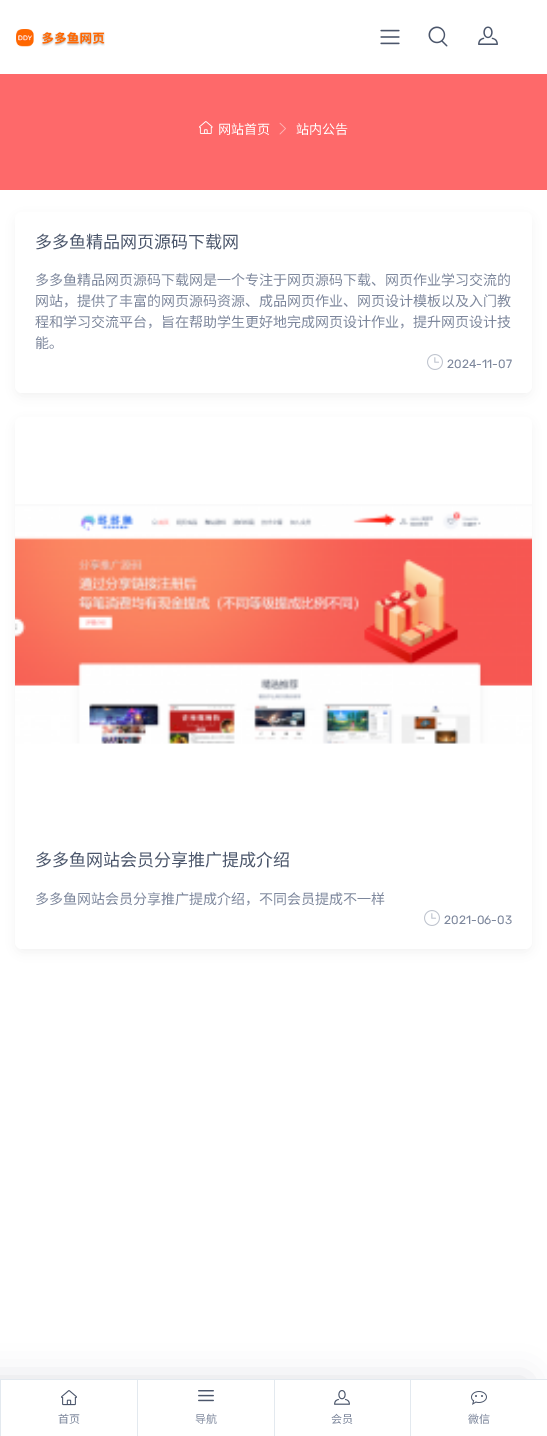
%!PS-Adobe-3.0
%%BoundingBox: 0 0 547 1436
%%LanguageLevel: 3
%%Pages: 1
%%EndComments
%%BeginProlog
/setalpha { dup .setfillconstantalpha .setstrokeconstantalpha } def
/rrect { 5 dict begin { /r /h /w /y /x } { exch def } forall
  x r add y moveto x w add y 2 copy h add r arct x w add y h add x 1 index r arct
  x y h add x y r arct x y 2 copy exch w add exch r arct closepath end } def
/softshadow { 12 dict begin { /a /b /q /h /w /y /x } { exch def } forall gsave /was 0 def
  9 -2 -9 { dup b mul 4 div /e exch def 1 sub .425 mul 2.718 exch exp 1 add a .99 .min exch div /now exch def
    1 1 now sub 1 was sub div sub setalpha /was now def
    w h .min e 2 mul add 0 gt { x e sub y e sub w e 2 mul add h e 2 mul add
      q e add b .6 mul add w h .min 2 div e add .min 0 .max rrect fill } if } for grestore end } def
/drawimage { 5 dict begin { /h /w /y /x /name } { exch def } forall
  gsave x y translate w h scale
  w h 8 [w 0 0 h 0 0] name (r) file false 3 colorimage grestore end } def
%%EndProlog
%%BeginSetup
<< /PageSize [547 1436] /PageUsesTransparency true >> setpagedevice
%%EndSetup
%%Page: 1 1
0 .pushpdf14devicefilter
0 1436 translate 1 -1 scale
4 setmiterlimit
1 setgray
0 0 547 1436 rectfill
(images/1.raw) 16 29 89 18 drawimage
(images/2.raw) 380 29 20 16 drawimage
(images/3.raw) 428 26 20 21 drawimage
(images/4.raw) 478 26 20 19 drawimage
0.996 0.412 0.416 setrgbcolor
0 74 547 116 rectfill
(images/5.raw) 199 121 14 13 drawimage
(images/6.raw) 279 122 7 13 drawimage
0 setgray
16 217 515 179 6 6 0.06 softshadow
1 setgray
15 212 517 181 7 rrect fill
(images/7.raw) 427 354 16 16 drawimage
0 setgray
16 422 515 530 6 6 0.06 softshadow
1 setgray
15 417 517 532 7 rrect fill
(images/8.raw) 15 504 517 240 drawimage
(images/7.raw) 424 910 16 16 drawimage
0.169 0.204 0.271 setrgbcolor
-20 1379 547 57 0 16 0.15 softshadow
1 setgray
1 1380 546 56 rectfill
0.89 0.914 0.937 setrgbcolor
0 1379 547 1 rectfill
0 1380 1 56 rectfill
(images/9.raw) 61 1390 16 16 drawimage
137 1380 1 56 rectfill
(images/10.raw) 198 1390 16 12 drawimage
274 1380 1 56 rectfill
(images/11.raw) 334 1390 16 15 drawimage
410 1380 1 56 rectfill
(images/12.raw) 471 1391 16 14 drawimage
/NotoSansCJKSC-Regular [13 0 0 -13 0 0] selectfont
1 setgray
218 134 moveto (网站首页) show
296 134 moveto (站内公告) show
/NotoSansCJKSC-Regular [17 0 0 -17 0 0] selectfont
0.294 0.337 0.42 setrgbcolor
35 248 moveto (多多鱼精品网页源码下载网) show
/NotoSansCJKSC-Regular [14 0 0 -14 0 0] selectfont
0.49 0.529 0.612 setrgbcolor
35 285 moveto (多多鱼精品网页源码下载网是一个专注于网页源码下载、网页作业学习交流的) show
35 306 moveto (网站，提供了丰富的网页源码资源、成品网页作业、网页设计模板以及入门教) show
35 327 moveto (程和学习交流平台，旨在帮助学生更好地完成网页设计作业，提升网页设计技) show
35 348 moveto (能。) show
/Rubik-Light [12 0 0 -12 0 0] selectfont
447 368 moveto (2024-11-07) show
/NotoSansCJKSC-Regular [17 0 0 -17 0 0] selectfont
0.294 0.337 0.42 setrgbcolor
35 866 moveto (多多鱼网站会员分享推广提成介绍) show
/NotoSansCJKSC-Regular [14 0 0 -14 0 0] selectfont
0.49 0.529 0.612 setrgbcolor
35 904 moveto (多多鱼网站会员分享推广提成介绍，不同会员提成不一样) show
/Rubik-Light [12 0 0 -12 0 0] selectfont
444 924 moveto (2021-06-03) show
/NotoSansCJKSC-Regular [11 0 0 -11 0 0] selectfont
58 1423 moveto (首页) show
195 1423 moveto (导航) show
331 1423 moveto (会员) show
468 1423 moveto (微信) show
.poppdf14devicefilter showpage
%%EOF
